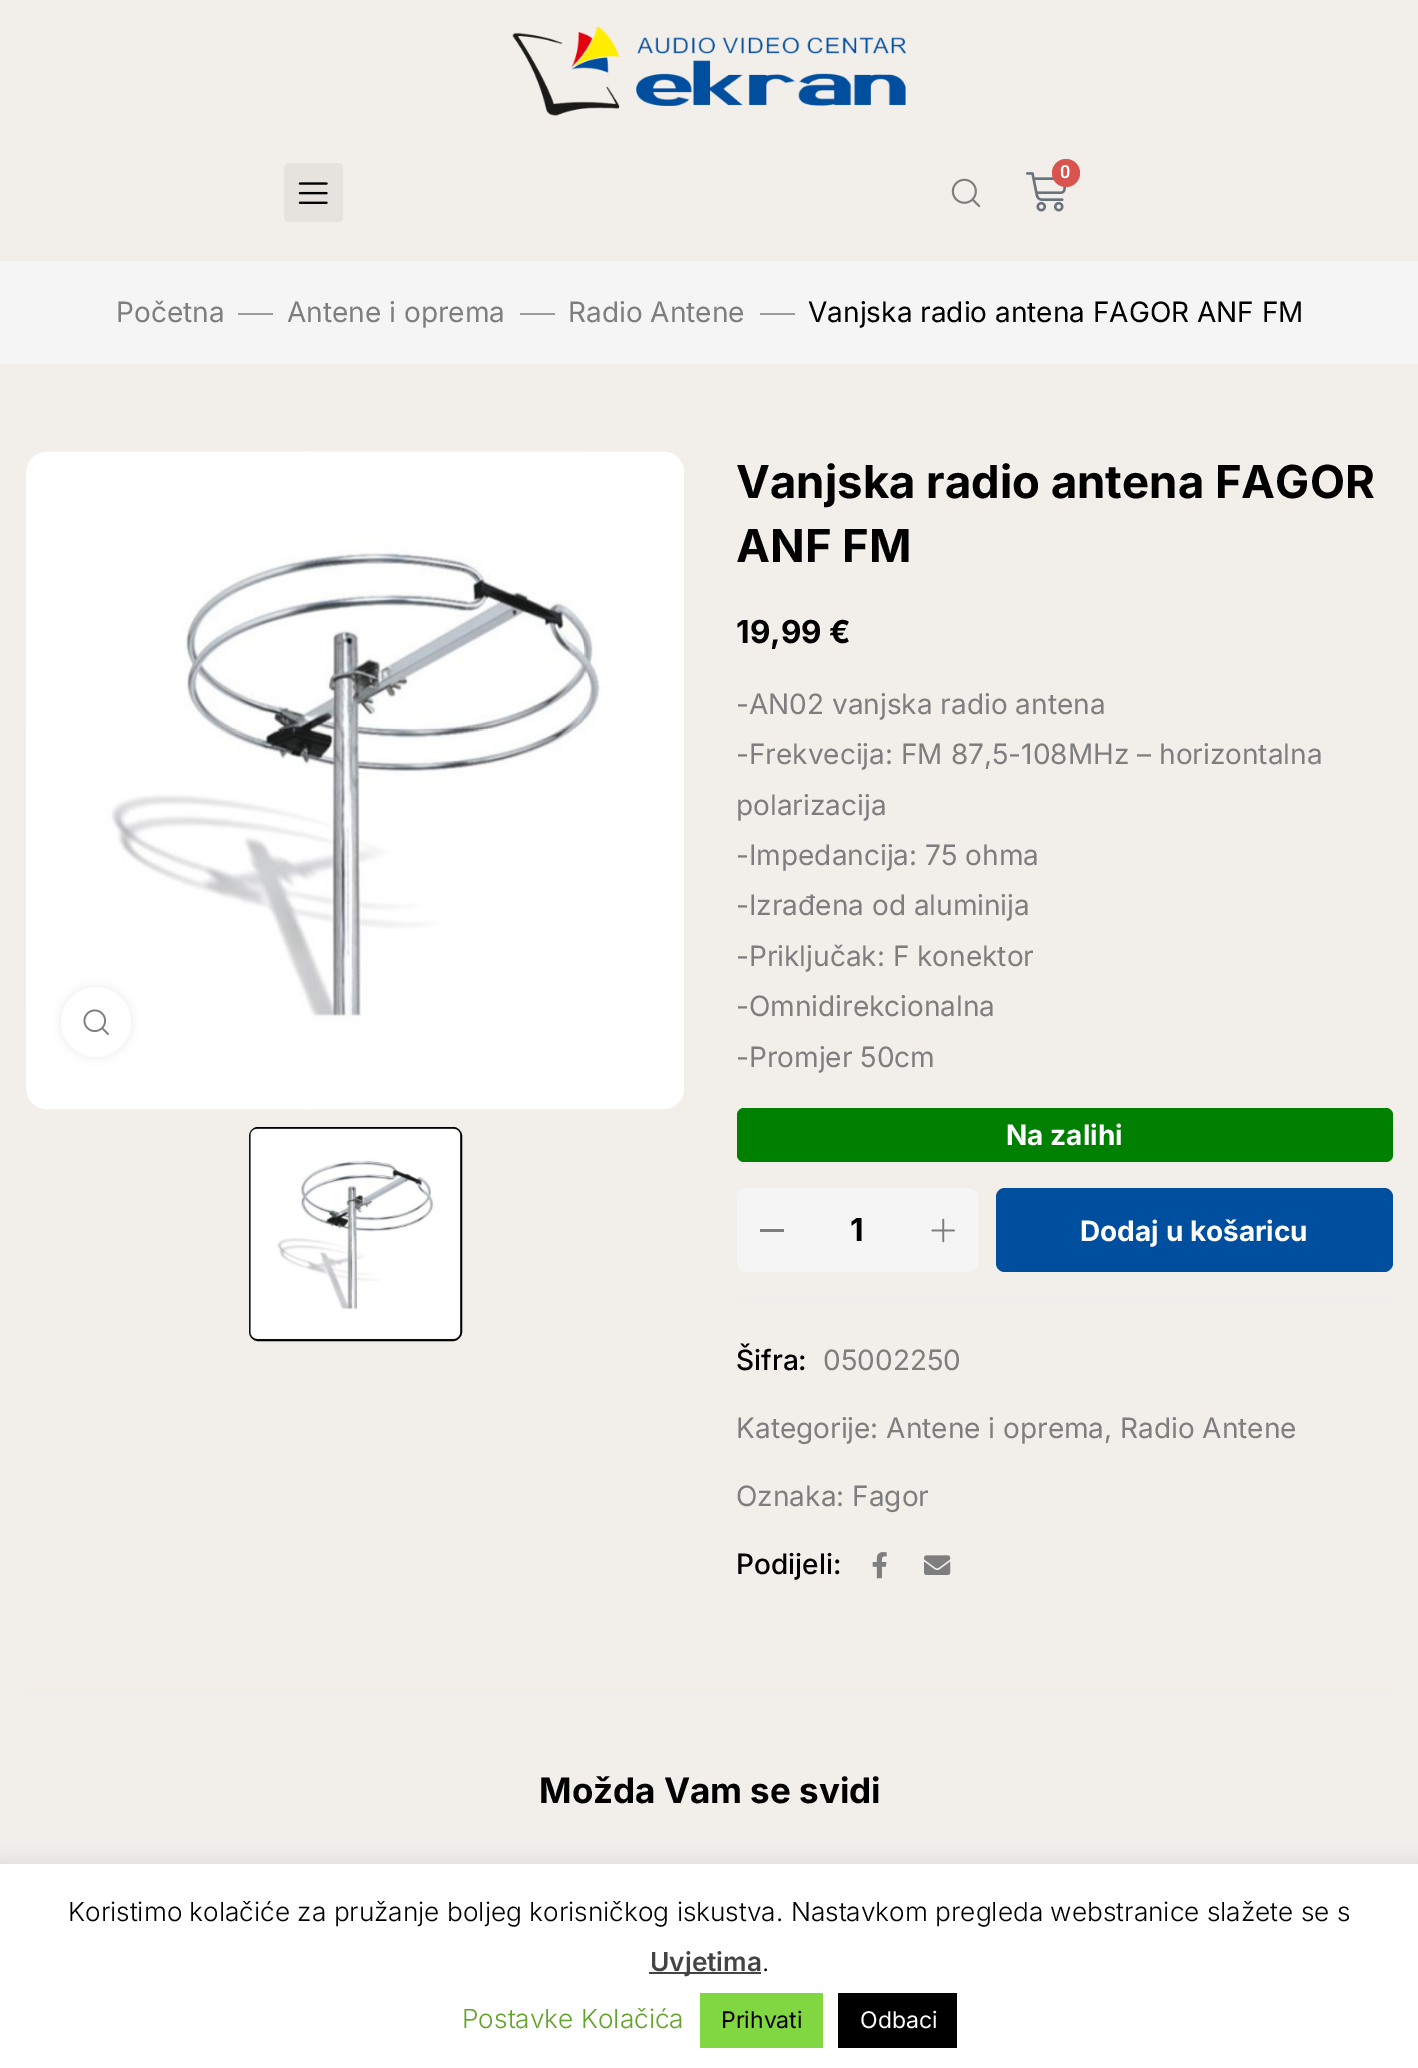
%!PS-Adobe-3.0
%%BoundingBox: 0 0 1418 2068
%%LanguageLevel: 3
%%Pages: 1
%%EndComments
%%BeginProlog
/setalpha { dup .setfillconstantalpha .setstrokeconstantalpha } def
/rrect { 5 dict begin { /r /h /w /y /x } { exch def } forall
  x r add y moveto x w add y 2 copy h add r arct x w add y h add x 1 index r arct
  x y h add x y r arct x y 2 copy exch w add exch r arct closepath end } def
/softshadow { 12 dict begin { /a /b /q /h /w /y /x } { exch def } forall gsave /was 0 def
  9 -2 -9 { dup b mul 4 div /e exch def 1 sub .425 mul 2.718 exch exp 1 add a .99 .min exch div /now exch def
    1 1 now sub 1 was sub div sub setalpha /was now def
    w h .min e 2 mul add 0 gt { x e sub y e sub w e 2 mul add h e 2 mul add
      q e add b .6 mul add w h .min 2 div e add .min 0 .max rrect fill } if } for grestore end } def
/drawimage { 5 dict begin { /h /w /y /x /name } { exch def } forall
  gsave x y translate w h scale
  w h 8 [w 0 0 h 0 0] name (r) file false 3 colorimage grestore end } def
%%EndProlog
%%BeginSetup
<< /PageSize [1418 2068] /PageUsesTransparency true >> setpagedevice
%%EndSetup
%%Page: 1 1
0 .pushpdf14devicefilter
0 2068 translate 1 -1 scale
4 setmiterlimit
0.949 0.933 0.918 setrgbcolor
0 0 1418 2068 rectfill
(images/1.raw) 512 26 395 90 drawimage
0.902 0.886 0.871 setrgbcolor
284 163 59 59 5 rrect fill
(images/2.raw) 298 182 30 22 drawimage
(images/3.raw) 1025 172 42 40 drawimage
0.851 0.325 0.31 setrgbcolor
newpath 1066 173 14 0 360 arc closepath fill
(images/4.raw) 951 178 30 30 drawimage
0.961 setgray
0 261 1418 103 rectfill
0.608 setgray
238 313 35 2 rectfill
520 313 35 2 rectfill
760 313 35 2 rectfill
(images/5.raw) 26 451 658 659 drawimage
0 setgray
61 987 70 70 35 4.5 0.08 softshadow
1 setgray
newpath 96 1022 35 0 360 arc closepath fill
(images/6.raw) 83 1009 26 26 drawimage
0 setgray
2 setlinewidth
250 1128 211 212 8 rrect stroke
(images/7.raw) 249 1128 212 212 drawimage
0 0.502 0 setrgbcolor
737 1108 656 54 7 rrect fill
0.961 setgray
738 1189 239 82 8 rrect gsave fill grestore
stroke
0.494 setgray
760 1229 24 3 rectfill
(images/8.raw) 931 1218 24 25 drawimage
0 0.306 0.62 setrgbcolor
996 1188 397 84 9 rrect fill
0.933 setgray
737 1299 656 2 rectfill
(images/9.raw) 872 1552 15 27 drawimage
(images/10.raw) 924 1555 27 20 drawimage
26 1694 1367 2 rectfill
0.675 0.671 0.671 setrgbcolor
0 1862 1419 205 0 9 0.3 softshadow
1 setgray
0 1864 1418 204 rectfill
0.267 setgray
649 1972 112 2 rectfill
0.506 0.843 0.259 setrgbcolor
700 1993 123 55 rectfill
0 setgray
838 1993 119 55 rectfill
/Roboto-SemiBold [18 0 0 -18 0 0] selectfont
1 setgray
1060 178 moveto (0) show
/Inter-Regular [28 0 0 -28 0 0] selectfont
0.494 setgray
116 322 moveto (Početna) show
287 322 moveto (Antene i oprema) show
568 322 moveto (Radio Antene) show
0 setgray
808 322 moveto (Vanjska radio antena FAGOR ANF FM) show
/Inter-Bold [45.5 0 0 -45.5 0 0] selectfont
736 498 moveto (Vanjska radio antena FAGOR) show
736 562 moveto (ANF FM) show
/Inter-Bold [31.5 0 0 -31.5 0 0] selectfont
736 643 moveto (19,99 €) show
/Inter-Regular [28 0 0 -28 0 0] selectfont
0.494 setgray
736 714 moveto (-AN02 vanjska radio antena) show
736 764 moveto (-Frekvecija: FM 87,5-108MHz – horizontalna) show
736 815 moveto (polarizacija) show
736 865 moveto (-Impedancija: 75 ohma) show
736 915 moveto (-Izrađena od aluminija) show
736 966 moveto (-Priključak: F konektor) show
736 1016 moveto (-Omnidirekcionalna) show
736 1067 moveto (-Promjer 50cm) show
/Inter-Bold [28 0 0 -28 0 0] selectfont
1 setgray
1006 1145 moveto (Na zalihi) show
/Inter-Bold [31.5 0 0 -31.5 0 0] selectfont
0 setgray
850 1241 moveto (1) show
/Inter-Bold [28 0 0 -28 0 0] selectfont
1 setgray
1080 1241 moveto (Dodaj u košaricu) show
/Inter-Medium [28 0 0 -28 0 0] selectfont
0 setgray
736 1370 moveto (Šifra:) show
/Inter-Regular [28 0 0 -28 0 0] selectfont
0.494 setgray
823 1370 moveto (05002250) show
736 1438 moveto (Kategorije: Antene i oprema, Radio Antene) show
736 1506 moveto (Oznaka: Fagor) show
/Inter-Medium [28 0 0 -28 0 0] selectfont
0 setgray
736 1574 moveto (Podijeli:) show
/Inter-Bold [35 0 0 -35 0 0] selectfont
539 1803 moveto (Možda Vam se svidi) show
/Inter-Light [26.25 0 0 -26.25 0 0] selectfont
68 1921 moveto (Koristimo kolačiće za pružanje boljeg korisničkog iskustva. Nastavkom pregleda webstranice slažete se s) show
/Inter-SemiBold [26.25 0 0 -26.25 0 0] selectfont
0.267 setgray
650 1971 moveto (Uvjetima) show
/Inter-Light [26.25 0 0 -26.25 0 0] selectfont
0 setgray
762 1971 moveto (.) show
0.384 0.639 0.161 setrgbcolor
462 2028 moveto (Postavke Kolačića) show
/Inter-Regular [23 0 0 -23 0 0] selectfont
0.039 0 0 setrgbcolor
721 2028 moveto (Prihvati) show
1 setgray
860 2028 moveto (Odbaci) show
.poppdf14devicefilter showpage
%%EOF
